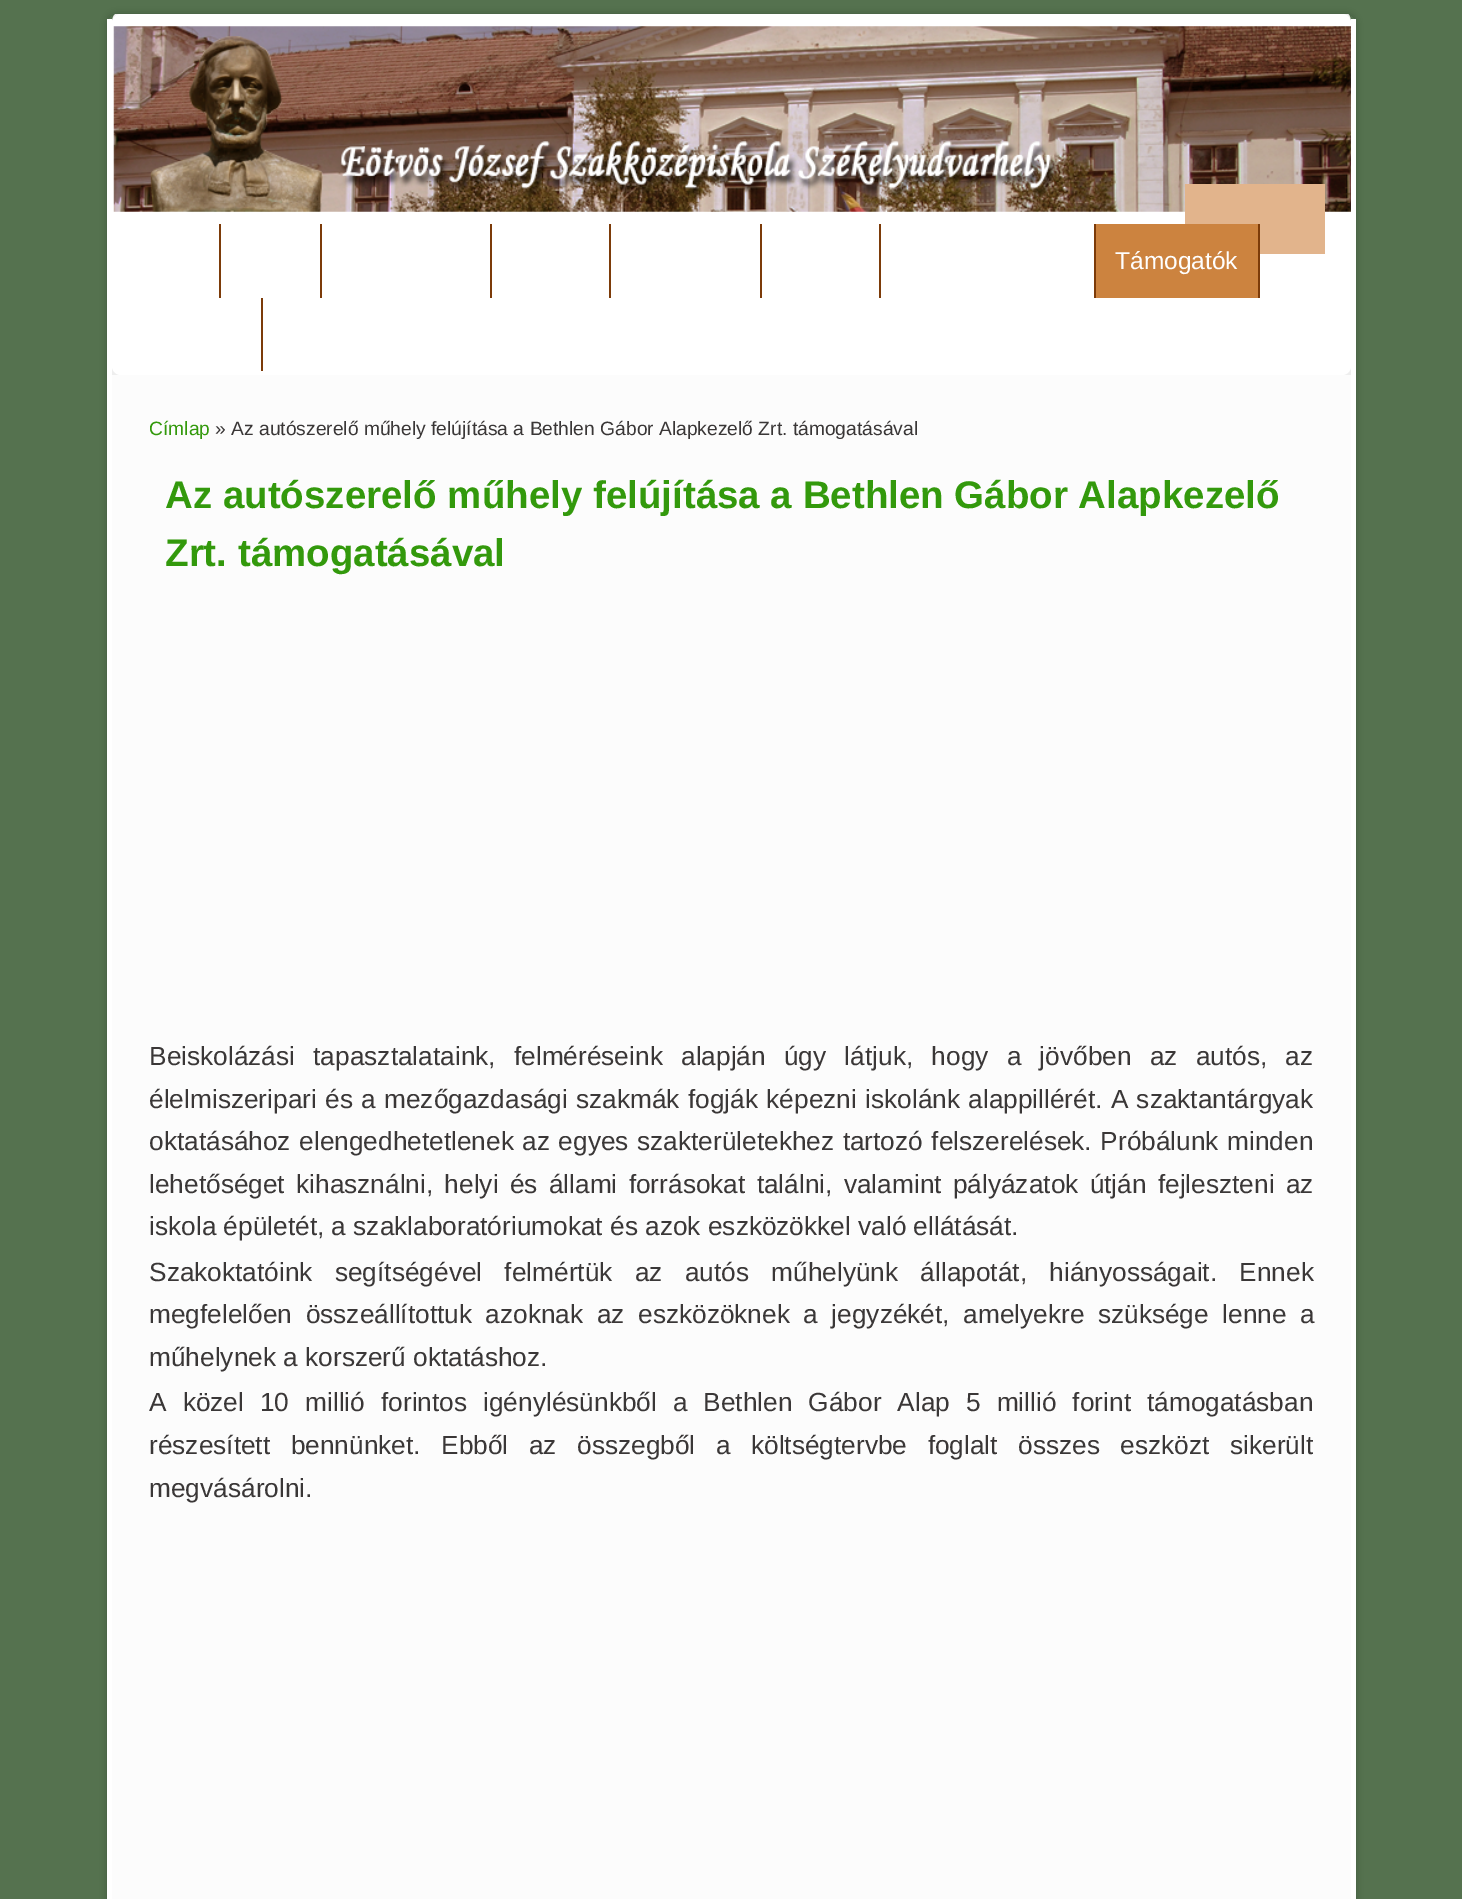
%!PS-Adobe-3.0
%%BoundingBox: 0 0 1462 1899
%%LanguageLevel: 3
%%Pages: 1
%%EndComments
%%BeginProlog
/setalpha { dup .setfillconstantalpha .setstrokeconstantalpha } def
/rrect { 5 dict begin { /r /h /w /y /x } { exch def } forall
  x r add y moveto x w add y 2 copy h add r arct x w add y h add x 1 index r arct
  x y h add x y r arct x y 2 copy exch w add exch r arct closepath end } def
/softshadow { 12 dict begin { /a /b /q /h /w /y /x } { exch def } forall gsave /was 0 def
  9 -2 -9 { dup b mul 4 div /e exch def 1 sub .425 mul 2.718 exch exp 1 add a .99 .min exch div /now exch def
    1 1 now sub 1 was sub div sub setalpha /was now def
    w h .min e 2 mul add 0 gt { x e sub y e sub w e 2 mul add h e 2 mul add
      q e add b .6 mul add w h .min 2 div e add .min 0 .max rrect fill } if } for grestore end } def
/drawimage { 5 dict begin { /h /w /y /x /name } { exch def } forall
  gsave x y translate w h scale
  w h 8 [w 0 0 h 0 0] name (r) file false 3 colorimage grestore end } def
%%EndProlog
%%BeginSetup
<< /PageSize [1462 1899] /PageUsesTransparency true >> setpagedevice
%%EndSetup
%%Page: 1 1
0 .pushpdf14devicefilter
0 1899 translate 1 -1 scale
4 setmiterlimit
0.333 0.447 0.31 setrgbcolor
0 0 1462 1899 rectfill
gsave
newpath 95 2 moveto 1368 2 lineto 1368 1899 lineto 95 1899 lineto closepath 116 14 moveto 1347 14 lineto 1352 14 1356 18 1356 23 curveto 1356 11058 lineto 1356 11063 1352 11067 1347 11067 curveto 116 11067 lineto 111 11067 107 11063 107 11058 curveto 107 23 lineto 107 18 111 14 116 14 curveto closepath eoclip newpath
0 setgray
107 14 1249 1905 9 3.5 0.2 softshadow
grestore
0.933 setgray
newpath 116 14 moveto 1348 14 lineto 1349 14 1351 18 1351 23 curveto 1351 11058 lineto 1351 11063 1349 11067 1348 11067 curveto 116 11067 lineto 114 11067 112 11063 112 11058 curveto 112 23 lineto 112 18 114 14 116 14 curveto closepath fill
1 setgray
1351 19 5 1880 rectfill
107 19 5 1880 rectfill
112 14 1239 361 9 rrect fill
(images/1.raw) 113 26 1238 186 drawimage
0.886 0.706 0.549 setrgbcolor
1185 184 140 70 rectfill
0.486 0.231 0.035 setrgbcolor
219 224 2 74 rectfill
320 224 2 74 rectfill
490 224 2 74 rectfill
609 224 2 74 rectfill
760 224 2 74 rectfill
879 224 2 74 rectfill
1094 224 2 74 rectfill
1258 224 2 74 rectfill
0.8 0.514 0.247 setrgbcolor
1096 224 162 74 rectfill
0.486 0.231 0.035 setrgbcolor
261 298 2 73 rectfill
0.988 setgray
112 375 1239 1524 rectfill
/LiberationSans-Regular [24.5 0 0 -24.5 0 0] selectfont
1 setgray
1115 269 moveto (Támogatók) show
/LiberationSans-Regular [19.25 0 0 -19.25 0 0] selectfont
0.2 0.6 0.047 setrgbcolor
149 435 moveto (Címlap) show
0.227 0.216 0.216 setrgbcolor
215 435 moveto (» Az autószerelő műhely felújítása a Bethlen Gábor Alapkezelő Zrt. támogatásával) show
/LiberationSans-Bold [38.5 0 0 -38.5 0 0] selectfont
0.2 0.6 0.047 setrgbcolor
165 508 moveto (Az autószerelő műhely felújítása a Bethlen Gábor Alapkezelő) show
165 566 moveto (Zrt. támogatásával) show
/LiberationSans-Regular [26.25 0 0 -26.25 0 0] selectfont
0.227 0.216 0.216 setrgbcolor
149 1065 moveto 11 0 32 (Beiskolázási tapasztalataink, felméréseink alapján úgy látjuk, hogy a jövőben az autós, az) widthshow
149 1108 moveto 1 0 32 (élelmiszeripari és a mezőgazdasági szakmák fogják képezni iskolánk alappillérét. A szaktantárgyak) widthshow
149 1150 moveto 1.25 0 32 (oktatásához elengedhetetlenek az egyes szakterületekhez tartozó felszerelések. Próbálunk minden) widthshow
149 1193 moveto 4 0 32 (lehetőséget kihasználni, helyi és állami forrásokat találni, valamint pályázatok útján fejleszteni az) widthshow
149 1235 moveto (iskola épületét, a szaklaboratóriumokat és azok eszközökkel való ellátását.) show
149 1281 moveto 15 0 32 (Szakoktatóink segítségével felmértük az autós műhelyünk állapotát, hiányosságait. Ennek) widthshow
149 1323 moveto 6.25 0 32 (megfelelően összeállítottuk azoknak az eszközöknek a jegyzékét, amelyekre szüksége lenne a) widthshow
149 1366 moveto (műhelynek a korszerű oktatáshoz.) show
149 1411 moveto 8.75 0 32 (A közel 10 millió forintos igénylésünkből a Bethlen Gábor Alap 5 millió forint támogatásban) widthshow
149 1454 moveto 13.25 0 32 (részesített bennünket. Ebből az összegből a költségtervbe foglalt összes eszközt sikerült) widthshow
149 1497 moveto (megvásárolni.) show
.poppdf14devicefilter showpage
%%EOF
